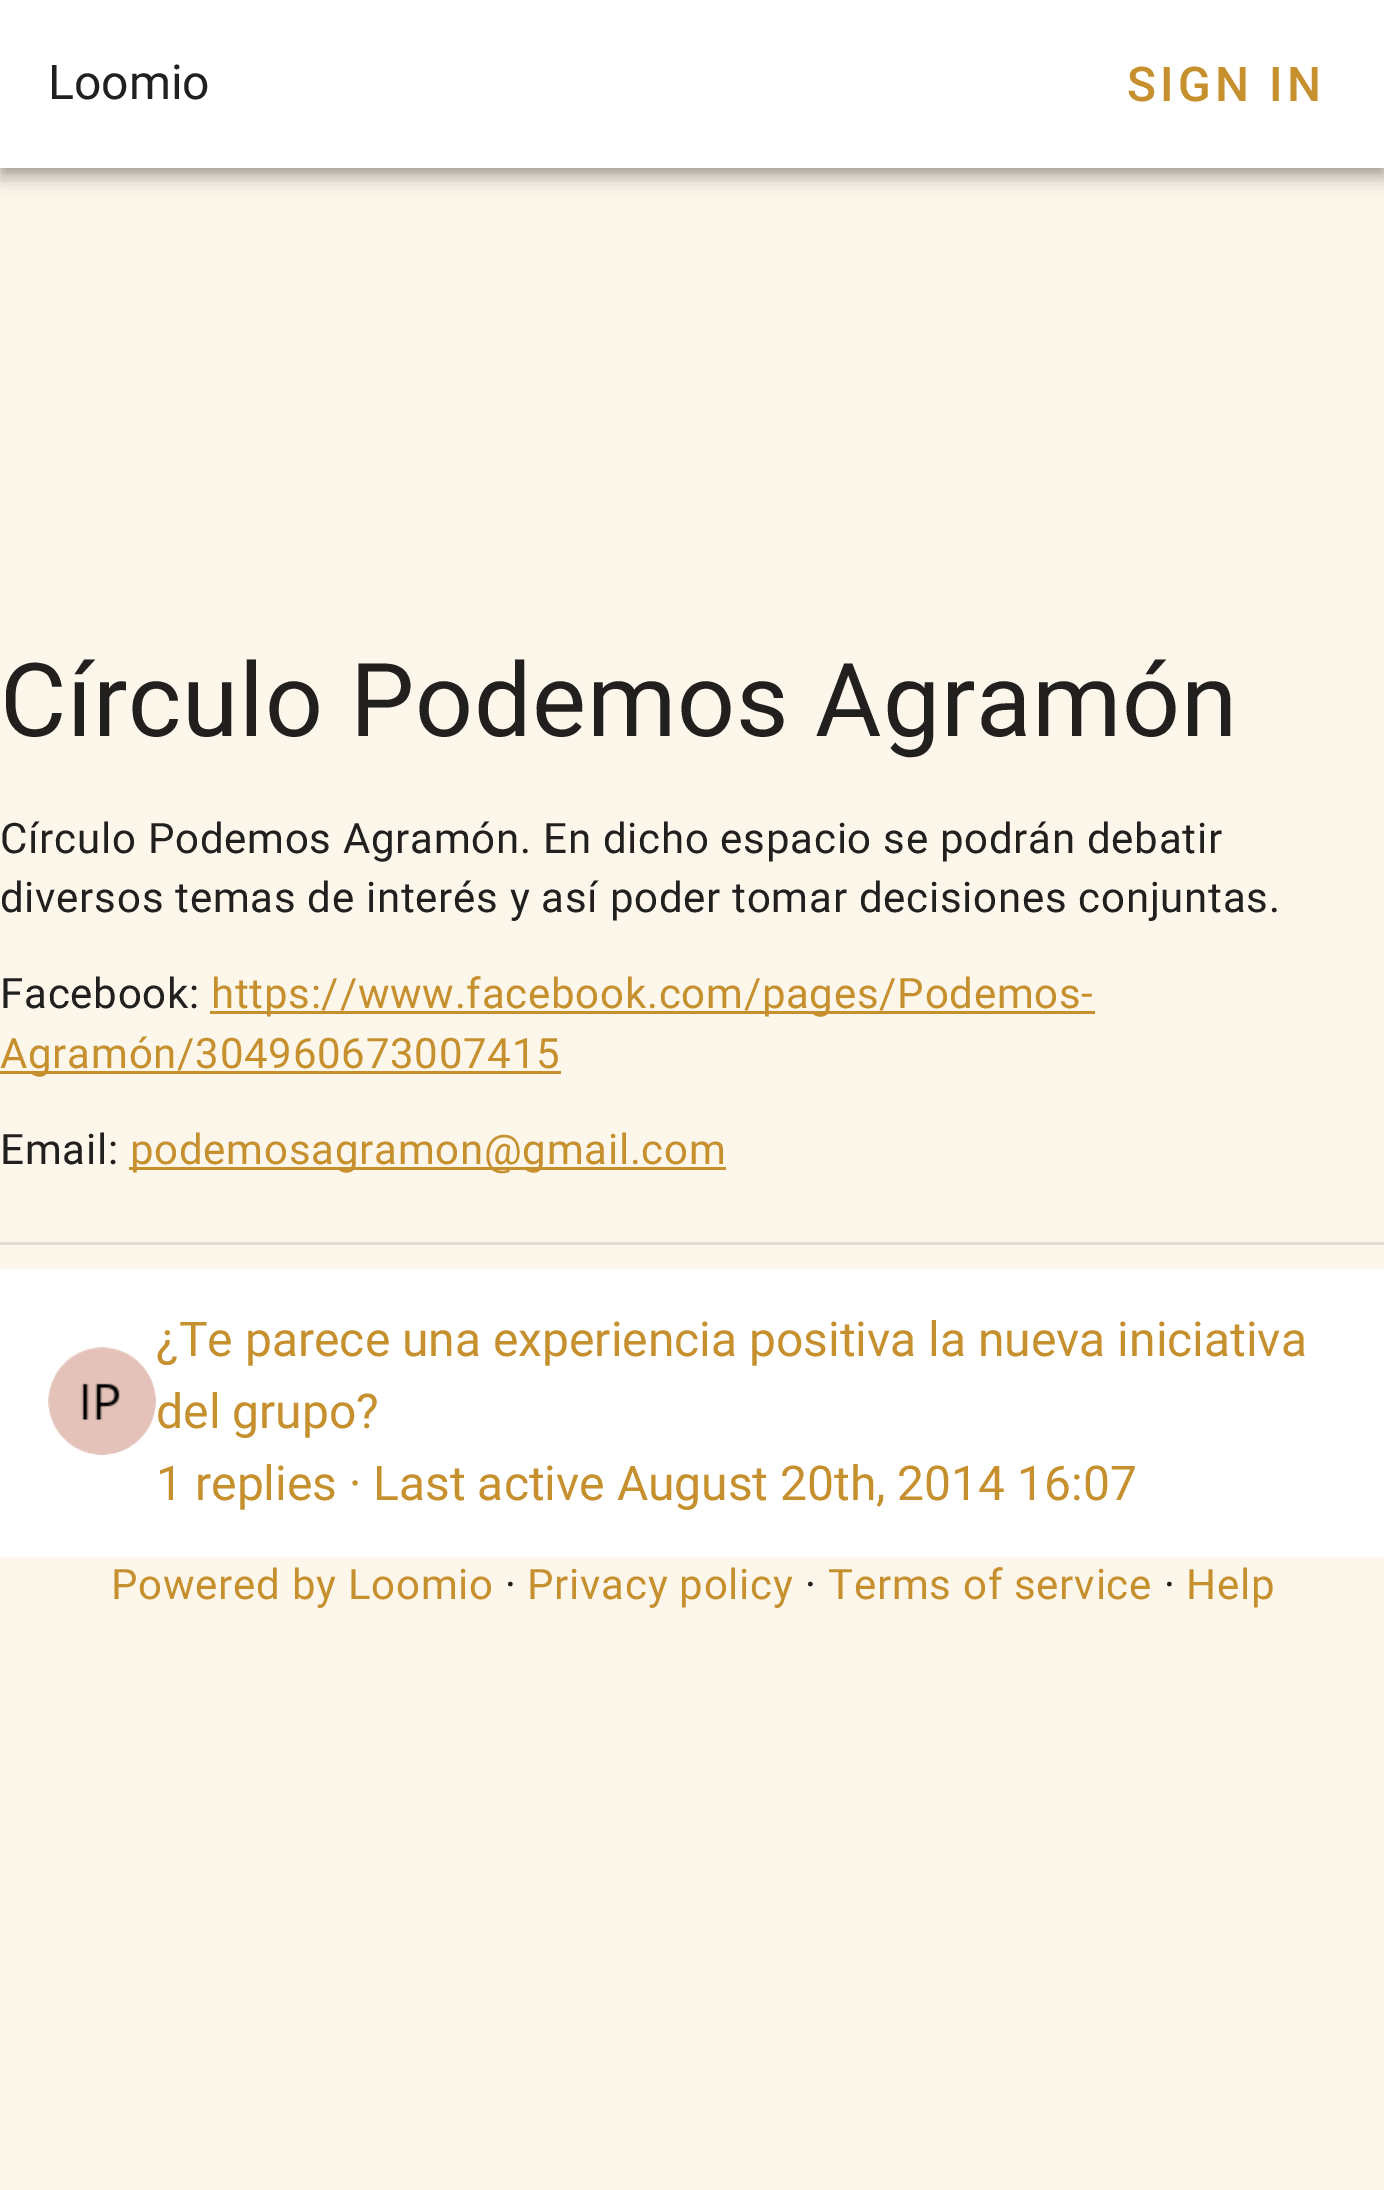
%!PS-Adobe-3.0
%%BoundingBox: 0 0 1384 2190
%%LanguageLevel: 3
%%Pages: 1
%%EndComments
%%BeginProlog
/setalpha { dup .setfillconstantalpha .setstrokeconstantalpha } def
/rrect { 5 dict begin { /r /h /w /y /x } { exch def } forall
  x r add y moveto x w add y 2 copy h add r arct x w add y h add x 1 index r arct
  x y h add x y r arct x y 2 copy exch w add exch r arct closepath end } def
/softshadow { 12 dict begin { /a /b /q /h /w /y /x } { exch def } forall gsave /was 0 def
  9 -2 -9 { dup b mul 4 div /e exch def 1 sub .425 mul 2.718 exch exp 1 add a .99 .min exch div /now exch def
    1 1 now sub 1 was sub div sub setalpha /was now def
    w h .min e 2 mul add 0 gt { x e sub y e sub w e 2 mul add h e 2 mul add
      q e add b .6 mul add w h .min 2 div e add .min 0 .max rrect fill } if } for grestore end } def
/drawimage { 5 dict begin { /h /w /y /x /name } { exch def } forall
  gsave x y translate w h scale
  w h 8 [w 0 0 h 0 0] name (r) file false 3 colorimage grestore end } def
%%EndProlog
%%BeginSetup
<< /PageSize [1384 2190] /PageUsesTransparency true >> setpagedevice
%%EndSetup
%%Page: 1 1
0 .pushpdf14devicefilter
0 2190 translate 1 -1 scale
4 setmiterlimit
0.988 0.965 0.922 setrgbcolor
0 0 1384 2190 rectfill
0 setgray
0 3 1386 168 0 15 0.12 softshadow
0 12 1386 168 0 7.5 0.14 softshadow
3 9 1380 162 0 6 0.2 softshadow
1 setgray
0 0 1384 168 rectfill
0.776 0.565 0.184 setrgbcolor
210 1011 885 3 rectfill
0 1071 561 3 rectfill
129 1167 597 3 rectfill
0.886 0.863 0.827 setrgbcolor
0 1242 1384 3 rectfill
1 setgray
0 1269 1384 288 rectfill
(images/1.raw) 48 1347 108 108 drawimage
/Roboto-Regular [48 0 0 -48 0 0] selectfont
0.129 0.125 0.122 setrgbcolor
48 99 moveto (Loomio) show
/Roboto-Medium [48 0 0 -48 0 0] selectfont
0.776 0.565 0.184 setrgbcolor
1127 101 moveto 4.25 0 (SIGN IN) ashow
/Roboto-Regular [102 0 0 -102 0 0] selectfont
0.129 0.125 0.122 setrgbcolor
0 736 moveto 0.75 0 (Círculo Podemos Agramón) ashow
/Roboto-Regular [42 0 0 -42 0 0] selectfont
0 853 moveto 0.75 0 (Círculo Podemos Agramón. En dicho espacio se podrán debatir) ashow
0 912 moveto 0.75 0 (diversos temas de interés y así poder tomar decisiones conjuntas.) ashow
0 1008 moveto 0.75 0 (Facebook:) ashow
0.776 0.565 0.184 setrgbcolor
211 1008 moveto 0.75 0 (https://www.facebook.com/pages/Podemos-) ashow
0 1068 moveto 0.75 0 (Agramón/304960673007415) ashow
0.129 0.125 0.122 setrgbcolor
0 1164 moveto 0.75 0 (Email:) ashow
0.776 0.565 0.184 setrgbcolor
130 1164 moveto 0.75 0 (podemosagramon@gmail.com) ashow
/Roboto-Regular [48 0 0 -48 0 0] selectfont
156 1356 moveto (¿Te parece una experiencia positiva la nueva iniciativa) show
156 1428 moveto (del grupo?) show
156 1500 moveto (1 replies · Last active August 20th, 2014 16:07) show
/Roboto-Regular [42 0 0 -42 0 0] selectfont
111 1599 moveto 0.75 0 (Powered by Loomio) ashow
0.129 0.125 0.122 setrgbcolor
505 1599 moveto 0.75 0 (·) ashow
0.776 0.565 0.184 setrgbcolor
527 1599 moveto 0.75 0 (Privacy policy) ashow
0.129 0.125 0.122 setrgbcolor
805 1599 moveto 0.75 0 (·) ashow
0.776 0.565 0.184 setrgbcolor
828 1599 moveto 0.75 0 (Terms of service) ashow
0.129 0.125 0.122 setrgbcolor
1164 1599 moveto 0.75 0 (·) ashow
0.776 0.565 0.184 setrgbcolor
1186 1599 moveto 0.75 0 (Help) ashow
.poppdf14devicefilter showpage
%%EOF
